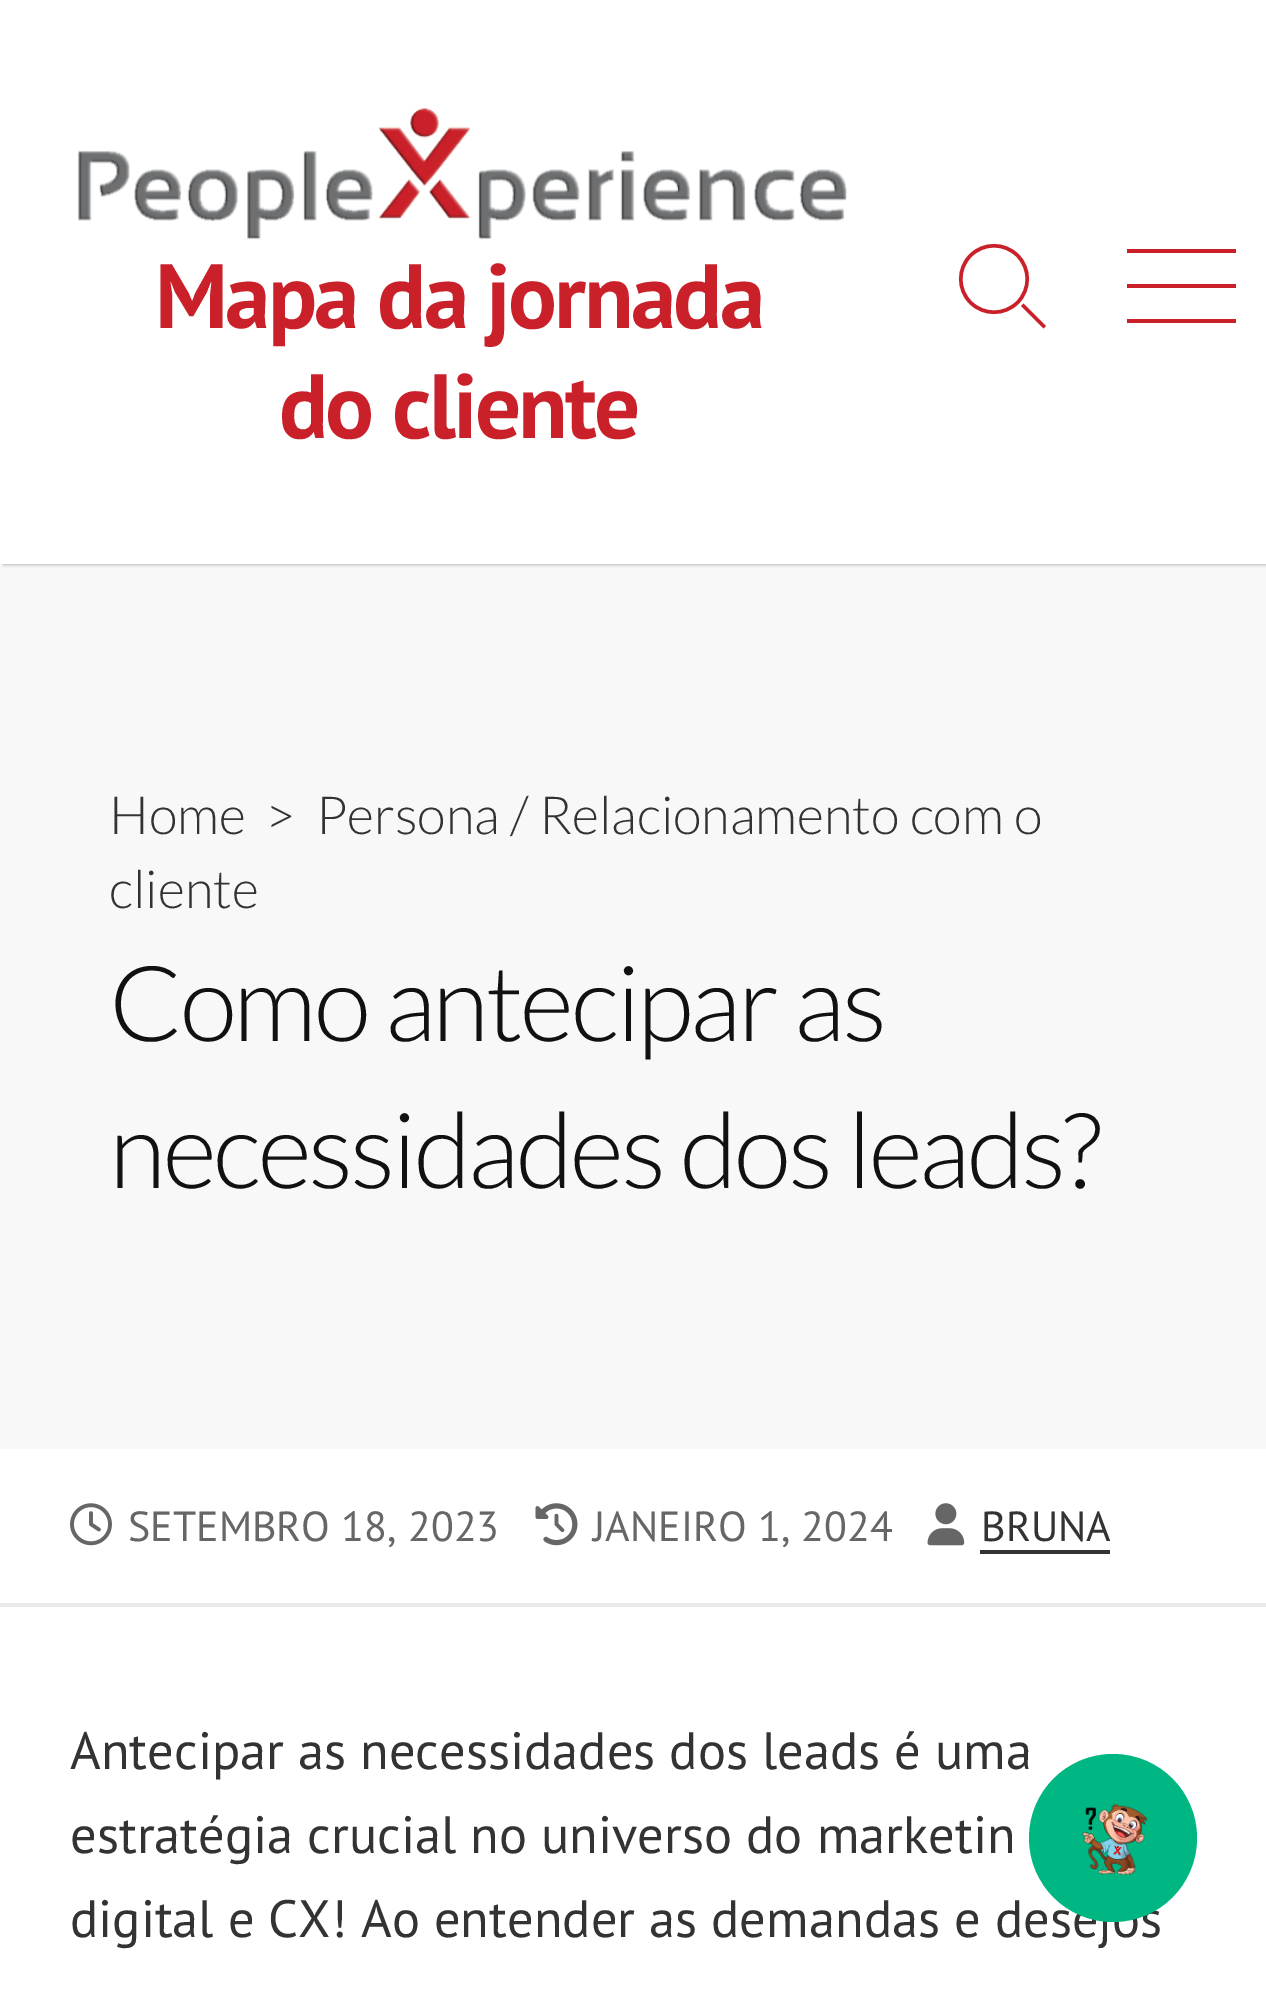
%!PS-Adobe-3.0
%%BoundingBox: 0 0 1266 1989
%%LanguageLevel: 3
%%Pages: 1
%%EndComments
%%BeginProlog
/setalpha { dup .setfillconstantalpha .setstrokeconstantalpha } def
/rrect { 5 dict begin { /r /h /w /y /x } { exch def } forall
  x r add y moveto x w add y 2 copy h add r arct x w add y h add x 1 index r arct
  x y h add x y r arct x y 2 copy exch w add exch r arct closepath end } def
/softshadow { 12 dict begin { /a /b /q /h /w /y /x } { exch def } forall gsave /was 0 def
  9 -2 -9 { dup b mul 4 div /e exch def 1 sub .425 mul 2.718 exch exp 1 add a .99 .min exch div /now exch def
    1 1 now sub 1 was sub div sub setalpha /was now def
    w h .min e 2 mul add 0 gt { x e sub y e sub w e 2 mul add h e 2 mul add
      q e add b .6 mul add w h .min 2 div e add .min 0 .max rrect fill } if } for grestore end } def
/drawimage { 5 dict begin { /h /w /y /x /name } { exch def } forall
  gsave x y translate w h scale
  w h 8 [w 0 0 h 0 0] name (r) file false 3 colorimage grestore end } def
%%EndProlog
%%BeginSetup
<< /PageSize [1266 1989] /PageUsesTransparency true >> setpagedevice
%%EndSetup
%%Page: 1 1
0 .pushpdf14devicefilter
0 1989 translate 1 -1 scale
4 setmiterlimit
0.973 setgray
0 0 1266 1989 rectfill
0 setgray
4 0 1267 564 0 2 0.4 softshadow
1 setgray
0 0 1266 564 rectfill
(images/1.raw) 78 108 769 132 drawimage
0.788 0.125 0.165 setrgbcolor
3.5 setlinewidth
newpath 970.5 255.5 moveto 983.5 242.5 1004.5 242.5 1017.5 255.5 curveto 1030.5 268.5 1030.5 289.5 1017.5 302.5 curveto 1004.5 315.5 983.5 315.5 970.5 302.5 curveto 957.5 289.5 957.5 268.5 970.5 255.5 curveto closepath stroke
newpath 1021 306 moveto 1023.5 303.5 lineto 1046 326 lineto 1043.5 328.5 lineto closepath fill
1127 249 109 4 rectfill
1127 284 109 4 rectfill
1127 319 109 4 rectfill
1 setgray
0 1449 1266 540 rectfill
0.918 setgray
0 1603 1266 4 rectfill
(images/2.raw) 70 1503 42 43 drawimage
(images/3.raw) 535 1503 43 43 drawimage
(images/4.raw) 927 1503 38 43 drawimage
0.2 setgray
newpath 980 1550 moveto 980 1554 lineto 1110 1554 lineto 1110 1502 lineto 1110 1550 lineto closepath fill
/PTSans-Bold [91.25 0 0 -91.25 0 0] selectfont
0.788 0.125 0.165 setrgbcolor
155 328 moveto -2.75 0 (Mapa da jornada) ashow
279 438 moveto -2.75 0 (do cliente) ashow
/Lato-Light [52.5 0 0 -52.5 0 0] selectfont
0.2 setgray
109 834 moveto (Home) show
265 834 moveto (>) show
316 834 moveto (Persona / Relacionamento com o) show
109 908 moveto (cliente) show
/Lato-Light [105 0 0 -105 0 0] selectfont
0.067 setgray
109 1041 moveto -3.15 0 (Como antecipar as) ashow
109 1188 moveto -3.15 0 (necessidades dos leads?) ashow
/PTSans-Regular [42 0 0 -42 0 0] selectfont
0.4 setgray
128 1541 moveto (SETEMBRO 18, 2023) show
593 1541 moveto (JANEIRO 1, 2024) show
0.2 setgray
981 1541 moveto (BRUNA) show
/PTSans-Regular [52.5 0 0 -52.5 0 0] selectfont
70 1769 moveto (Antecipar as necessidades dos leads é uma) show
70 1853 moveto (estratégia crucial no universo do marketin) show
70 1937 moveto (digital e CX! Ao entender as demandas e desejos) show
0 0.714 0.51 setrgbcolor
newpath 1113 1838 84 0 360 arc closepath fill
(images/5.raw) 1082 1804 66 71 drawimage
.poppdf14devicefilter showpage
%%EOF
